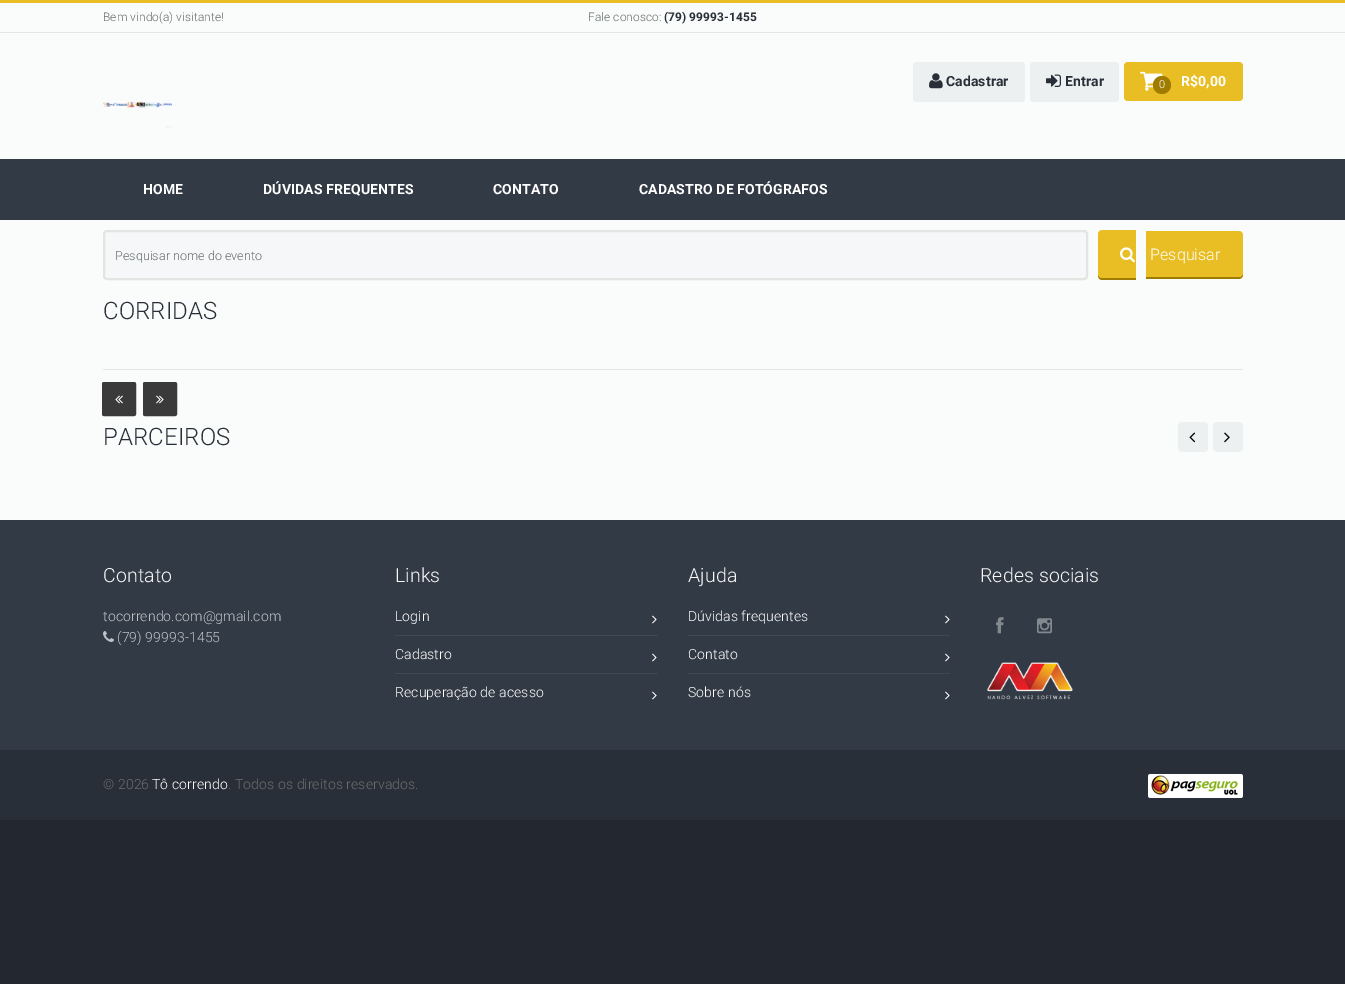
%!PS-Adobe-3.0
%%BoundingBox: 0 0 1345 984
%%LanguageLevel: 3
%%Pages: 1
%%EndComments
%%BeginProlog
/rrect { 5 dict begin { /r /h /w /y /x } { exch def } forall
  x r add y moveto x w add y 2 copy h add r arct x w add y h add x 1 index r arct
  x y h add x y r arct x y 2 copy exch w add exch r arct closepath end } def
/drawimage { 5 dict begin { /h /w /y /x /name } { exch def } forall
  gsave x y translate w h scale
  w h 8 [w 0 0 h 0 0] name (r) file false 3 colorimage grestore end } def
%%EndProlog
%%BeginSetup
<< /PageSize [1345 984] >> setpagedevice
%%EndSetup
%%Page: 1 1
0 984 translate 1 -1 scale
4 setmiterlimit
0.137 0.157 0.188 setrgbcolor
0 0 1345 984 rectfill
0.98 0.984 0.984 setrgbcolor
0 3 1345 517 rectfill
0.914 0.745 0.141 setrgbcolor
0 0 1345 3 rectfill
0.886 0.902 0.906 setrgbcolor
0 32 1345 1 rectfill
0.925 0.941 0.945 setrgbcolor
913 62 112 40 4 rrect fill
(images/1.raw) 929 73 14 16 drawimage
1030 62 89 40 4 rrect fill
(images/2.raw) 1046 74 15 13 drawimage
0.914 0.745 0.141 setrgbcolor
1124 62 119 39 4 rrect fill
(images/3.raw) 1140 71 23 20 drawimage
0.624 0.486 0 setrgbcolor
newpath 1162 85 9 0 360 arc closepath fill
(images/4.raw) 102 101 70 27 drawimage
0.196 0.227 0.271 setrgbcolor
0 159 1345 61 rectfill
0.961 0.969 0.973 setrgbcolor
104 231 983 48 3 rrect gsave fill grestore
0.894 0.894 0.886 setrgbcolor
2 setlinewidth
stroke
0.624 0.486 0 setrgbcolor
newpath 1098 274 moveto 1098 276 lineto 1098 278 1100 280 1102 280 curveto 1136 280 lineto 1136 278 lineto 1102 278 lineto 1100 278 1098 276 1098 274 curveto closepath fill
0.914 0.745 0.141 setrgbcolor
newpath 1102 230 moveto 1136 230 lineto 1136 278 lineto 1102 278 lineto 1100 278 1098 276 1098 274 curveto 1098 234 lineto 1098 232 1100 230 1102 230 curveto closepath fill
0.624 0.486 0 setrgbcolor
newpath 1146 277 moveto 1146 279 lineto 1239 279 lineto 1241 279 1243 277 1243 275 curveto 1243 273 lineto 1243 275 1241 277 1239 277 curveto closepath fill
0.914 0.745 0.141 setrgbcolor
newpath 1146 231 moveto 1239 231 lineto 1241 231 1243 233 1243 235 curveto 1243 273 lineto 1243 275 1241 277 1239 277 curveto 1146 277 lineto closepath fill
(images/5.raw) 1120 247 15 16 drawimage
0.886 0.902 0.906 setrgbcolor
103 369 1140 1 rectfill
0.227 setgray
102.5 382.5 33 33 1.5 rrect gsave fill grestore
1 setlinewidth
stroke
(images/6.raw) 115 395 8 9 drawimage
143.5 382.5 33 33 1.5 rrect gsave fill grestore
stroke
(images/7.raw) 156 395 8 9 drawimage
0.925 0.941 0.945 setrgbcolor
1178 422 30 30 4 rrect fill
(images/8.raw) 1189 432 7 11 drawimage
1213 422 30 30 4 rrect fill
(images/9.raw) 1224 432 6 11 drawimage
0.196 0.227 0.271 setrgbcolor
0 520 1345 230 rectfill
(images/10.raw) 103 631 11 11 drawimage
(images/11.raw) 652 615 5 9 drawimage
0.251 0.282 0.322 setrgbcolor
395 635 263 1 rectfill
(images/11.raw) 652 653 5 9 drawimage
395 673 263 1 rectfill
(images/11.raw) 652 691 5 9 drawimage
(images/11.raw) 945 615 5 9 drawimage
688 635 262 1 rectfill
(images/11.raw) 945 653 5 9 drawimage
688 673 262 1 rectfill
(images/11.raw) 945 691 5 9 drawimage
(images/12.raw) 996 617 8 17 drawimage
(images/13.raw) 1037 618 15 16 drawimage
(images/14.raw) 987 662 86 38 drawimage
0.161 0.184 0.22 setrgbcolor
0 750 1345 70 rectfill
(images/15.raw) 1148 774 95 24 drawimage
/Roboto-Light [11.9 0 0 -11.9 0 0] selectfont
0.412 0.431 0.431 setrgbcolor
103 21 moveto 0.1 0 (Bem vindo\(a\) visitante!) ashow
588 21 moveto 0.1 0 (Fale conosco:) ashow
/Roboto-Bold [11.9 0 0 -11.9 0 0] selectfont
0.161 0.184 0.22 setrgbcolor
664 21 moveto 0.1 0 (\(79\) 99993-1455) ashow
/Roboto-Bold [14 0 0 -14 0 0] selectfont
946 86 moveto 0.1 0 (Cadastrar) ashow
1065 86 moveto 0.1 0 (Entrar) ashow
/Roboto-Light [11 0 0 -11 0 0] selectfont
1 setgray
1159 88 moveto 0.1 0 (0) ashow
/Roboto-Bold [14 0 0 -14 0 0] selectfont
1181 86 moveto 0.1 0 (R$0,00) ashow
143 194 moveto 0.1 0 (HOME) ashow
263 194 moveto 0.1 0 (DÚVIDAS FREQUENTES) ashow
493 194 moveto 0.1 0 (CONTATO) ashow
639 194 moveto 0.1 0 (CADASTRO DE FOTÓGRAFOS) ashow
/Roboto-Light [12.6 0 0 -12.6 0 0] selectfont
0.412 0.431 0.431 setrgbcolor
115 260 moveto (Pesquisar nome do evento) show
/Roboto-Light [16 0 0 -16 0 0] selectfont
1 setgray
1150 260 moveto 0.1 0 (Pesquisar) ashow
/Roboto-Light [24 0 0 -24 0 0] selectfont
0.161 0.184 0.22 setrgbcolor
103 319 moveto 0.1 0 (CORRIDAS) ashow
103 445 moveto 0.1 0 (PARCEIROS) ashow
/Roboto-Light [19.5 0 0 -19.5 0 0] selectfont
0.976 setgray
103 582 moveto 0.1 0 (Contato) ashow
/Roboto-Light [14 0 0 -14 0 0] selectfont
0.741 0.765 0.78 setrgbcolor
103 621 moveto 0.1 0 (tocorrendo.com@gmail.com) ashow
117 642 moveto 0.1 0 (\(79\) 99993-1455) ashow
/Roboto-Light [19.5 0 0 -19.5 0 0] selectfont
0.976 setgray
395 582 moveto 0.1 0 (Links) ashow
/Roboto-Light [14 0 0 -14 0 0] selectfont
1 setgray
395 621 moveto 0.1 0 (Login) ashow
395 659 moveto 0.1 0 (Cadastro) ashow
395 697 moveto 0.1 0 (Recuperação de acesso) ashow
/Roboto-Light [19.5 0 0 -19.5 0 0] selectfont
0.976 setgray
688 582 moveto 0.1 0 (Ajuda) ashow
/Roboto-Light [14 0 0 -14 0 0] selectfont
1 setgray
688 621 moveto 0.1 0 (Dúvidas frequentes) ashow
688 659 moveto 0.1 0 (Contato) ashow
688 697 moveto 0.1 0 (Sobre nós) ashow
/Roboto-Light [19.5 0 0 -19.5 0 0] selectfont
0.976 setgray
980 582 moveto 0.1 0 (Redes sociais) ashow
/Roboto-Light [14 0 0 -14 0 0] selectfont
0.412 0.431 0.431 setrgbcolor
103 789 moveto 0.1 0 (© 2026) ashow
1 setgray
152 789 moveto 0.1 0 (Tô correndo) ashow
0.412 0.431 0.431 setrgbcolor
228 789 moveto 0.1 0 (. Todos os direitos reservados.) ashow
showpage
%%EOF
